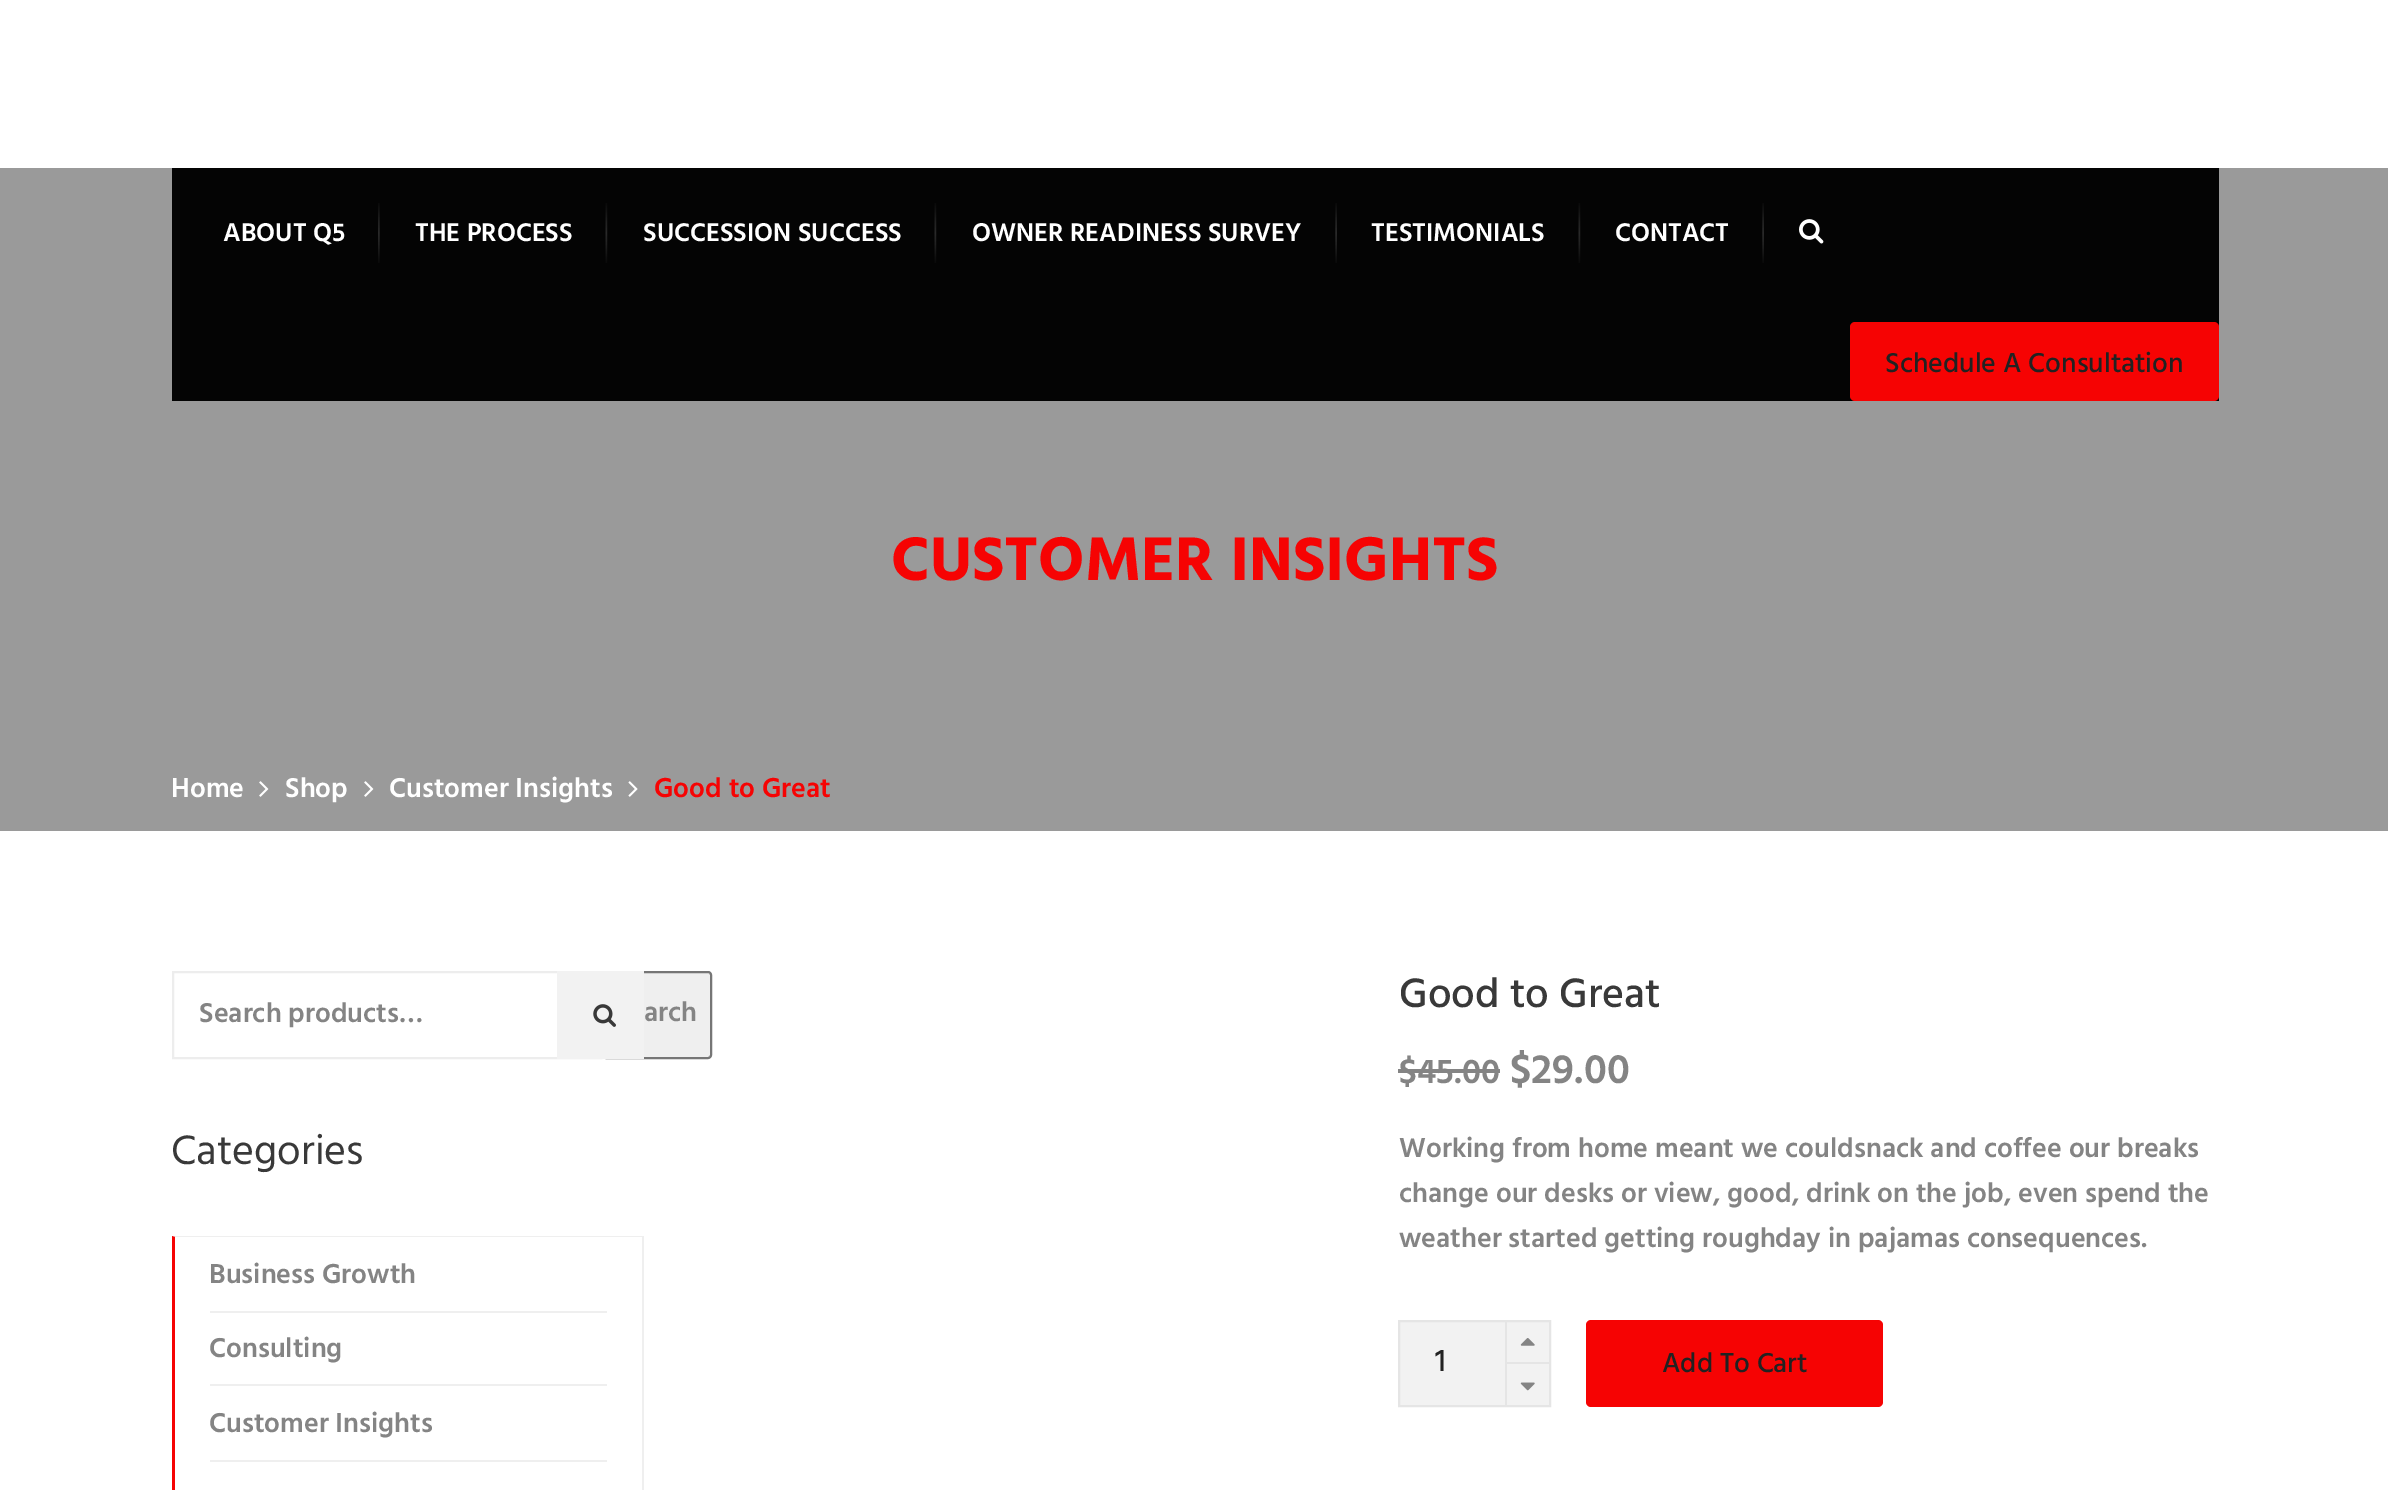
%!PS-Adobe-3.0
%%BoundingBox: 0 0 2388 1490
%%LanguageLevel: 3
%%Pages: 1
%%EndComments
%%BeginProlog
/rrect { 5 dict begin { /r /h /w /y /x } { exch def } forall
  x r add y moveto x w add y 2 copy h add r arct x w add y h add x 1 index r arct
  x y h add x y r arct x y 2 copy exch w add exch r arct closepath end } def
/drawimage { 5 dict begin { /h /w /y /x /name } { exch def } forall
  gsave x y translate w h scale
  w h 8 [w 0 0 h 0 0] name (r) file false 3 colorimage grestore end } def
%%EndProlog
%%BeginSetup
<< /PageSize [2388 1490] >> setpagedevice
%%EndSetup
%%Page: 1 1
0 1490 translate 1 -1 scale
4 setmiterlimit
1 setgray
0 0 2388 1490 rectfill
0.604 setgray
0 168 2388 663 rectfill
0.016 setgray
172 168 2047 233 rectfill
(images/1.raw) 378 203 2 60 drawimage
(images/2.raw) 605 203 3 60 drawimage
(images/2.raw) 934 203 3 60 drawimage
(images/3.raw) 1335 203 2 60 drawimage
(images/2.raw) 1578 203 3 60 drawimage
(images/3.raw) 1762 203 2 60 drawimage
(images/4.raw) 1799 219 25 25 drawimage
0.965 0.012 0.012 setrgbcolor
1850 322 369 79 5 rrect fill
(images/5.raw) 259 781 10 16 drawimage
(images/5.raw) 364 781 10 16 drawimage
(images/6.raw) 628 781 10 16 drawimage
0.929 setgray
2 setlinewidth
173 972 428 86 rectstroke
0.937 setgray
603 972 108 86 3 rrect gsave fill grestore
0.463 setgray
stroke
0.949 setgray
557 971 87 88 rectfill
(images/7.raw) 593 1004 23 23 drawimage
0.937 setgray
newpath 172 1236 moveto 644 1236 lineto 642 1237 lineto 175 1237 lineto closepath fill
642 1236 2 254 rectfill
0.965 0.012 0.012 setrgbcolor
newpath 172 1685 moveto 172 1236 lineto 175 1237 lineto 175 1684 lineto closepath fill
0.937 setgray
210 1311 397 2 rectfill
210 1384 397 2 rectfill
210 1460 397 2 rectfill
0.518 setgray
1398 1069 102 4 rectfill
0.949 setgray
newpath 1399 1321 moveto 1550 1321 lineto 1550 1406 lineto 1399 1406 lineto closepath gsave fill grestore
0.898 setgray
stroke
1505 1363 2 42 rectfill
1505 1362 44 2 rectfill
1505 1321 2 42 rectfill
(images/8.raw) 1520 1338 15 8 drawimage
(images/9.raw) 1520 1382 15 9 drawimage
0.965 0.012 0.012 setrgbcolor
1586 1320 297 87 5 rrect fill
/Hind-SemiBold [26.25 0 0 -26.25 0 0] selectfont
1 setgray
223 241 moveto (ABOUT Q5) show
415 241 moveto (THE PROCESS) show
643 241 moveto (SUCCESSION SUCCESS) show
972 241 moveto (OWNER READINESS SURVEY) show
1371 241 moveto (TESTIMONIALS) show
1615 241 moveto (CONTACT) show
/Hind-Medium [28 0 0 -28 0 0] selectfont
0.133 setgray
1885 372 moveto (Schedule A Consultation) show
/Hind-Bold [63 0 0 -63 0 0] selectfont
0.965 0.012 0.012 setrgbcolor
891 580 moveto (CUSTOMER INSIGHTS) show
/Hind-SemiBold [28 0 0 -28 0 0] selectfont
1 setgray
171 797 moveto (Home) show
285 797 moveto (Shop) show
389 797 moveto (Customer Insights) show
0.965 0.012 0.012 setrgbcolor
654 797 moveto (Good to Great) show
0.518 setgray
199 1022 moveto (Search products…) show
644 1021 moveto (arch) show
/Hind-Regular [42 0 0 -42 0 0] selectfont
0.224 setgray
171 1164 moveto (Categories) show
/Hind-SemiBold [28 0 0 -28 0 0] selectfont
0.518 setgray
209 1283 moveto (Business Growth) show
209 1357 moveto (Consulting) show
209 1432 moveto (Customer Insights) show
/Hind-Medium [42 0 0 -42 0 0] selectfont
0.224 setgray
1399 1007 moveto (Good to Great) show
/Hind-SemiBold [35 0 0 -35 0 0] selectfont
0.518 setgray
1399 1083 moveto ($45.00) show
/Hind-SemiBold [42 0 0 -42 0 0] selectfont
1510 1083 moveto ($29.00) show
/Hind-SemiBold [28 0 0 -28 0 0] selectfont
1399 1157 moveto (Working from home meant we couldsnack and coffee our breaks) show
1399 1202 moveto (change our desks or view, good, drink on the job, even spend the) show
1399 1247 moveto (weather started getting roughday in pajamas consequences.) show
/Hind-Medium [32 0 0 -32 0 0] selectfont
0.133 setgray
1435 1371 moveto (1) show
/Hind-Medium [28 0 0 -28 0 0] selectfont
1662 1372 moveto (Add To Cart) show
showpage
%%EOF
